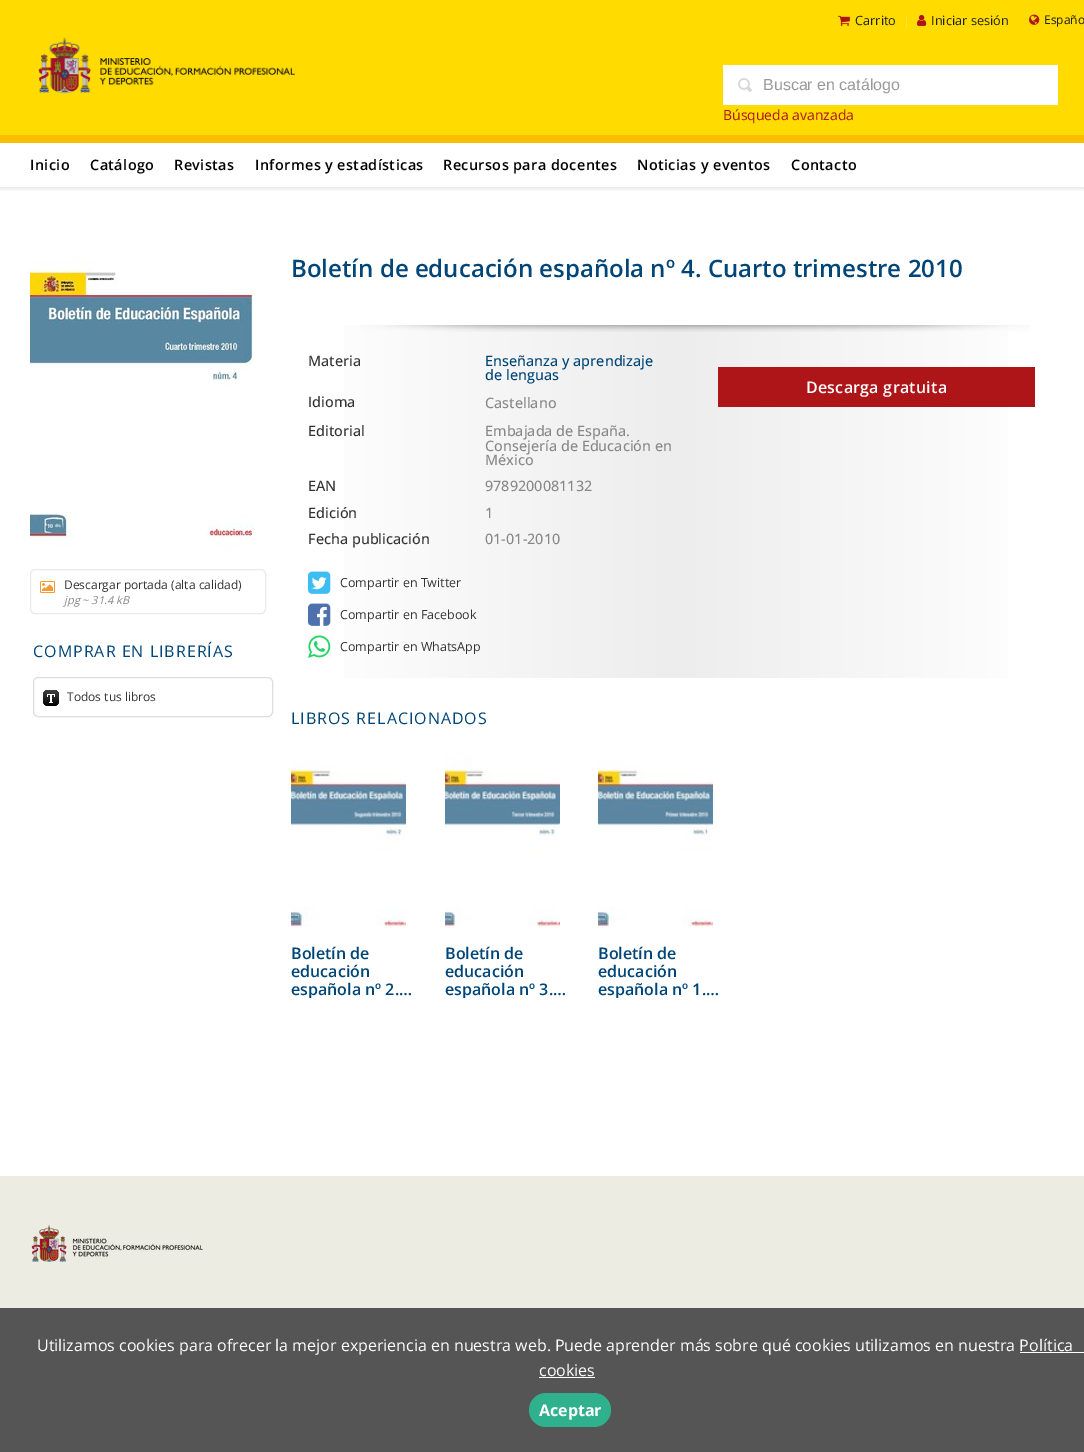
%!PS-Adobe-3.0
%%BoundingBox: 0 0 1084 1452
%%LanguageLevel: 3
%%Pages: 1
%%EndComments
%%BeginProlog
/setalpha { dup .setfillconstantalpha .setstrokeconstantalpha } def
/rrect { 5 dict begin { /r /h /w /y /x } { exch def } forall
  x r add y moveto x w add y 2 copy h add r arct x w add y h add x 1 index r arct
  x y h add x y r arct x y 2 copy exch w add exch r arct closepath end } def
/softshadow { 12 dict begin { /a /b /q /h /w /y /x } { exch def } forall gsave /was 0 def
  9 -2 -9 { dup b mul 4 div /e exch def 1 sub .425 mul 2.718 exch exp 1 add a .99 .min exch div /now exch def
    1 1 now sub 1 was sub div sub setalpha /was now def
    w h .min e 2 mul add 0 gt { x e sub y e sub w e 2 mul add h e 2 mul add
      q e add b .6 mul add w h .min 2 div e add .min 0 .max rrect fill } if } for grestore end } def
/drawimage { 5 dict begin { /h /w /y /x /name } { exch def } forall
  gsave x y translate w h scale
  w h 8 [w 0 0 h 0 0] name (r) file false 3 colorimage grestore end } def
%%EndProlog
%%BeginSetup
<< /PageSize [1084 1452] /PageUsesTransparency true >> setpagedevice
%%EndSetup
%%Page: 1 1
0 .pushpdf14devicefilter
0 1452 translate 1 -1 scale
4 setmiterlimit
1 setgray
0 0 1084 1452 rectfill
gsave
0 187 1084 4 rectclip
0 setgray
0 2 1084 187 0 2 0.1 softshadow
grestore
1 0.859 0 setrgbcolor
0 0 1084 135 rectfill
(images/1.raw) 838 15 12 11 drawimage
1 0.886 0.2 setrgbcolor
906 15 1 13 rectfill
(images/2.raw) 917 15 10 11 drawimage
(images/3.raw) 1029 14 11 11 drawimage
(images/4.raw) 38 37 257 57 drawimage
1 setgray
723 65 335 40 rectfill
(images/5.raw) 738 78 14 14 drawimage
0.98 0.741 0 setrgbcolor
0 135 1084 8 rectfill
(images/6.raw) 30 259 224 288 drawimage
0.918 setgray
30.5 569.5 235 44 4.5 rrect stroke
(images/7.raw) 40 581 15 12 drawimage
0.867 setgray
33.5 677.5 239 39 4.5 rrect stroke
(images/8.raw) 43 690 16 16 drawimage
gsave newpath 344 325 moveto 1008 325 lineto 1008 678 lineto 344 678 lineto closepath clip newpath
<< /ShadingType 2 /ColorSpace /DeviceRGB /Coords [291 502 1061 502] /Extend [true true] /Function << /FunctionType 3 /Domain [0 1] /Functions [<< /FunctionType 2 /Domain [0 1] /C0 [1 1 1] /C1 [0.929 0.929 0.929] /N 1 >> << /FunctionType 2 /Domain [0 1] /C0 [0.929 0.929 0.929] /C1 [1 1 1] /N 1 >>] /Bounds [0.5] /Encode [0 1 0 1] >> >> shfill grestore
(images/9.raw) 360 325 669 7 drawimage
(images/10.raw) 308 571 23 23 drawimage
(images/11.raw) 308 603 23 23 drawimage
(images/12.raw) 308 635 23 23 drawimage
0.678 0.082 0.098 setrgbcolor
718 367 317 40 rectfill
(images/13.raw) 291 760 115 168 drawimage
(images/14.raw) 445 754 115 174 drawimage
(images/15.raw) 598 760 115 168 drawimage
0.925 0.925 0.886 setrgbcolor
0 1176 1084 132 rectfill
(images/16.raw) 31 1225 172 37 drawimage
0.333 setgray
0 1308 1084 144 rectfill
1 setgray
1020 1352 64 1 rectfill
539 1377 56 1 rectfill
0.184 0.694 0.553 setrgbcolor
529 1393 82 34 17 rrect fill
/OpenSans-Regular [12.75 0 0 -12.75 0 0] selectfont
0.114 0.114 0.106 setrgbcolor
855 25 moveto (Carrito) show
931 25 moveto (Iniciar sesión) show
/OpenSans-Regular [12 0 0 -12 0 0] selectfont
1044 24 moveto (Españo) show
/LiberationSans-Regular [16 0 0 -16 0 0] selectfont
0.6 setgray
763 90 moveto (Buscar en catálogo) show
/OpenSans-Regular [14 0 0 -14 0 0] selectfont
0.678 0.082 0.098 setrgbcolor
723 120 moveto (Búsqueda avanzada) show
/OpenSans-SemiBold [14.4 0 0 -14.4 0 0] selectfont
0 setgray
30 170 moveto 0.4 0 (Inicio) ashow
90 170 moveto 0.4 0 (Catálogo) ashow
174 170 moveto 0.4 0 (Revistas) ashow
255 170 moveto 0.4 0 (Informes y estadísticas) ashow
443 170 moveto 0.4 0 (Recursos para docentes) ashow
637 170 moveto 0.4 0 (Noticias y eventos) ashow
791 170 moveto 0.4 0 (Contacto) ashow
/OpenSans-Regular [12 0 0 -12 0 0] selectfont
0.2 setgray
64 589 moveto (Descargar portada \(alta calidad\)) show
/OpenSans-Italic [11 0 0 -11 0 0] selectfont
0.533 setgray
64 604 moveto (jpg ~ 31.4 kB) show
/OpenSans-Regular [16 0 0 -16 0 0] selectfont
0 0.271 0.471 setrgbcolor
33 657 moveto 1 0 (COMPRAR EN LIBRERÍAS) ashow
/OpenSans-Regular [12 0 0 -12 0 0] selectfont
0.2 setgray
67 701 moveto (Todos tus libros) show
gsave
291 256 672 24 rectclip
/OpenSans-SemiBold [24 0 0 -24 0 0] selectfont
0 0.271 0.471 setrgbcolor
291 277 moveto (Boletín de educación española nº 4. Cuarto trimestre 2010) show
grestore
/OpenSans-Medium [14.4 0 0 -14.4 0 0] selectfont
308 366 moveto (Materia) show
0 0.271 0.471 setrgbcolor
485 366 moveto (Enseñanza y aprendizaje) show
485 380 moveto (de lenguas) show
0.2 setgray
308 407 moveto (Idioma) show
0.533 setgray
485 408 moveto (Castellano) show
0.2 setgray
308 436 moveto (Editorial) show
0.533 setgray
485 436 moveto (Embajada de España.) show
485 451 moveto (Consejería de Educación en) show
485 465 moveto (México) show
0.2 setgray
308 491 moveto (EAN) show
0.533 setgray
485 491 moveto (9789200081132) show
0.2 setgray
308 518 moveto (Edición) show
0.533 setgray
485 518 moveto (1) show
0.2 setgray
308 544 moveto (Fecha publicación) show
0.533 setgray
485 544 moveto (01-01-2010) show
/OpenSans-Regular [12.5 0 0 -12.5 0 0] selectfont
0.2 setgray
340 587 moveto (Compartir en Twitter) show
340 619 moveto (Compartir en Facebook) show
340 651 moveto (Compartir en WhatsApp) show
/OpenSans-SemiBold [16 0 0 -16 0 0] selectfont
1 setgray
806 393 moveto 0.25 0 (Descarga gratuita) ashow
/OpenSans-Regular [16 0 0 -16 0 0] selectfont
0 0.271 0.471 setrgbcolor
291 724 moveto 1 0 (LIBROS RELACIONADOS) ashow
/OpenSans-SemiBold [16 0 0 -16 0 0] selectfont
291 959 moveto (Boletín de) show
291 977 moveto (educación) show
gsave
291 944 139 54 rectclip
291 995 moveto (española nº 2.…) show
grestore
445 959 moveto (Boletín de) show
445 977 moveto (educación) show
gsave
445 944 138 54 rectclip
445 995 moveto (española nº 3.…) show
grestore
598 959 moveto (Boletín de) show
598 977 moveto (educación) show
gsave
598 944 139 54 rectclip
598 995 moveto (española nº 1.…) show
grestore
/OpenSans-Regular [16 0 0 -16 0 0] selectfont
1 setgray
37 1351 moveto (Utilizamos cookies para ofrecer la mejor experiencia en nuestra web. Puede aprender más sobre qué cookies utilizamos en nuestra Política) show
539 1376 moveto (cookies) show
/OpenSans-Bold [16 0 0 -16 0 0] selectfont
539 1416 moveto (Aceptar) show
.poppdf14devicefilter showpage
%%EOF
